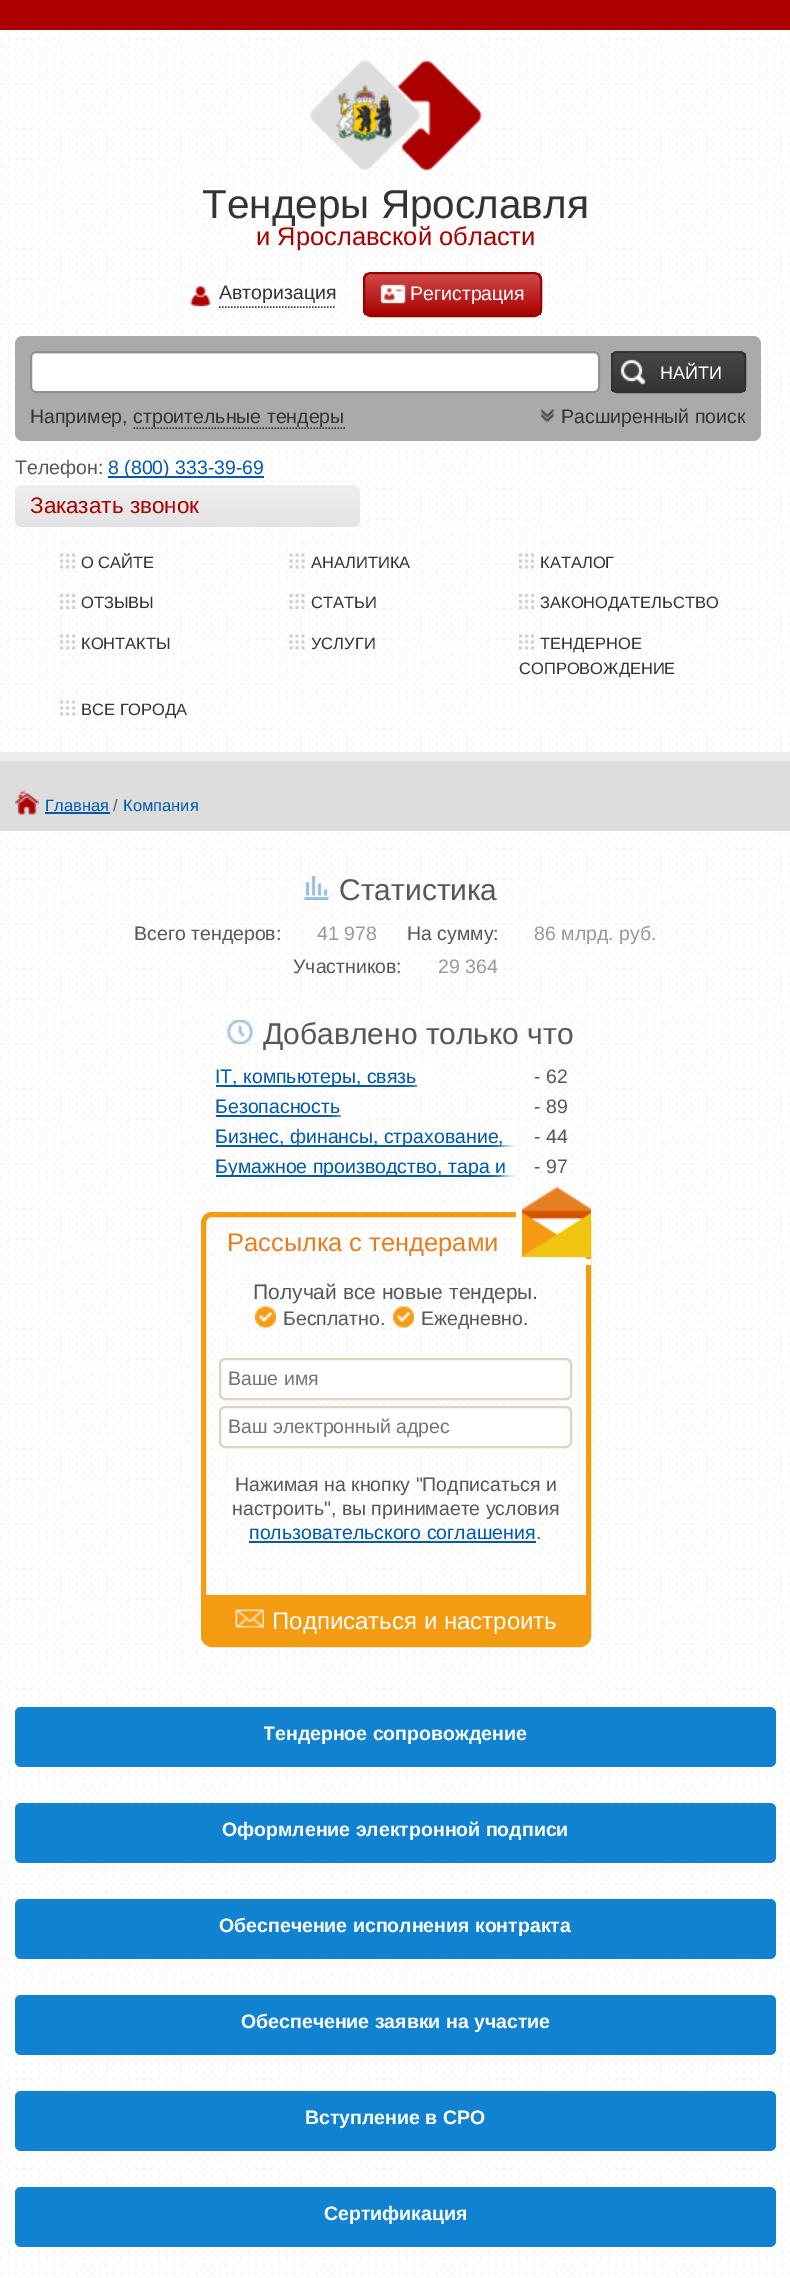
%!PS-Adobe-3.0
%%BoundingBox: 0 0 790 2278
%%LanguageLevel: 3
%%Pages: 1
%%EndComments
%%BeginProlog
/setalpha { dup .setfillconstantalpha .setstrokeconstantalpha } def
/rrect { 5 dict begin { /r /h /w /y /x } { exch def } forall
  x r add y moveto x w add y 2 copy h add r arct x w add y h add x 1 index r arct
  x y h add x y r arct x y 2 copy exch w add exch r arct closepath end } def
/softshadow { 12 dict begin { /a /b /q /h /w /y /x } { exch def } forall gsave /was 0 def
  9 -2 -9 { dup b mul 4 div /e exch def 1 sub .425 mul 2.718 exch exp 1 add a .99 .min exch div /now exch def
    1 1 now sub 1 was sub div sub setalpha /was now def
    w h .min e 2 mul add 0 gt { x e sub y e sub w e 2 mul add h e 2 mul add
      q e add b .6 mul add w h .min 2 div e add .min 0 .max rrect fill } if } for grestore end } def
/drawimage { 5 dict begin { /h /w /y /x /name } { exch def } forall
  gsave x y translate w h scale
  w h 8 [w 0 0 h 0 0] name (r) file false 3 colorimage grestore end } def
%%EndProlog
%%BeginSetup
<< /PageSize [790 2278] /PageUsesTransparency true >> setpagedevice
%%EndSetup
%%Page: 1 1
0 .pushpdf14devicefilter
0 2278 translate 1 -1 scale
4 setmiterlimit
1 setgray
0 0 790 2278 rectfill
(images/1.raw) 0 30 790 2248 drawimage
0.667 0 0 setrgbcolor
0 0 790 30 rectfill
(images/2.raw) 310 60 172 111 drawimage
0.2 setgray
1.5 setlinewidth
[1.5 1.5] 0 setdash
newpath 219 307 moveto 336 307 lineto stroke
(images/3.raw) 190 286 21 21 drawimage
gsave
363 272 179 45 8 rrect clip newpath
gsave newpath 363 273 moveto 542 273 lineto 542 315 lineto 363 315 lineto closepath clip newpath
<< /ShadingType 2 /ColorSpace /DeviceRGB /Coords [452 273 452 315] /Extend [true true] /Function << /FunctionType 2 /Domain [0 1] /C0 [0.824 0.294 0.294] /C1 [0.671 0.004 0.004] /N 1 >> >> shfill grestore
grestore
0.588 0.012 0.012 setrgbcolor
2 setlinewidth
[] 0 setdash
364 273 177 43 7 rrect stroke
(images/4.raw) 380 284 26 20 drawimage
0.667 setgray
15 336 746 105 8 rrect fill
1 setgray
30 351 570 42 6 rrect fill
0.925 setgray
newpath 36 354 moveto 594 354 lineto 596 354 598 356 598 358 curveto 598 388 lineto 597 391 lineto 598 390 599 388 599 387 curveto 599 358 lineto 599 355 597 353 594 353 curveto 37 353 lineto 34 353 32 355 32 358 curveto 32 356 34 354 36 354 curveto closepath fill
0.569 0.565 0.565 setrgbcolor
31 352 568 40 5 rrect stroke
gsave
611 351 135 42 6 rrect clip newpath
gsave newpath 611 353 moveto 746 353 lineto 746 392 lineto 611 392 lineto closepath clip newpath
<< /ShadingType 2 /ColorSpace /DeviceRGB /Coords [678 353 678 392] /Extend [true true] /Function << /FunctionType 2 /Domain [0 1] /C0 [0.278 0.278 0.278] /C1 [0.2 0.2 0.2] /N 1 >> >> shfill grestore
grestore
0.2 setgray
612 352 133 40 5 rrect stroke
(images/5.raw) 620 358 26 27 drawimage
1.5 setlinewidth
[1.5 1.5] 0 setdash
newpath 133.5 428 moveto 345 428 lineto stroke
(images/6.raw) 540 409 15 13 drawimage
0 0.353 0.667 setrgbcolor
108 476 156 2 rectfill
gsave 15 485 345 42 8 rrect clip newpath
<< /ShadingType 2 /ColorSpace /DeviceRGB /Coords [188 485 188 527] /Extend [true true] /Function << /FunctionType 2 /Domain [0 1] /C0 [0.933 0.933 0.933] /C1 [0.894 0.894 0.894] /N 1 >> >> shfill grestore
0.933 setgray
0 752 790 9 rectfill
(images/7.raw) 60 553 15 16 drawimage
(images/8.raw) 289 553 16 16 drawimage
(images/9.raw) 519 553 15 16 drawimage
(images/10.raw) 60 594 15 15 drawimage
(images/11.raw) 289 594 16 15 drawimage
(images/12.raw) 519 594 15 15 drawimage
(images/13.raw) 60 634 15 16 drawimage
(images/14.raw) 289 634 16 16 drawimage
(images/15.raw) 519 634 15 16 drawimage
(images/16.raw) 60 700 15 16 drawimage
0.867 setgray
0 761 790 70 rectfill
(images/17.raw) 15 790 24 25 drawimage
0 0.353 0.667 setrgbcolor
45 812 65 2 rectfill
(images/18.raw) 304 876 25 24 drawimage
(images/19.raw) 226 1020 28 24 drawimage
216 1085 201 2 rectfill
gsave
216 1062 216 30 rectclip
1 setgray
419 1047 36 60 0 7.5 1 softshadow
grestore
216 1115 125 2 rectfill
gsave
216 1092 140 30 rectclip
1 setgray
342 1077 36 60 0 7.5 1 softshadow
grestore
216 1145 300 2 rectfill
gsave
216 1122 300 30 rectclip
1 setgray
503 1107 36 60 0 7.5 1 softshadow
grestore
216 1175 300 2 rectfill
gsave
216 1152 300 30 rectclip
1 setgray
503 1137 36 60 0 7.5 1 softshadow
grestore
0.953 0.612 0.071 setrgbcolor
5 setlinewidth
[] 0 setdash
203.5 1214.5 385 430 8.5 rrect stroke
(images/20.raw) 522 1186 69 71 drawimage
1 setgray
516 1259 75 6 rectfill
516 1187 6 69 rectfill
(images/21.raw) 255 1306 21 22 drawimage
(images/22.raw) 393 1306 21 22 drawimage
219 1358 353 42 6 rrect fill
0.925 setgray
newpath 225 1360 moveto 566 1360 lineto 568 1360 570 1363 570 1365 curveto 570 1364 lineto 570 1361 568 1359 565 1359 curveto 226 1359 lineto 224 1359 222 1360 221 1362 curveto 222 1361 224 1360 225 1360 curveto closepath fill
0.875 0.827 0.753 setrgbcolor
2 setlinewidth
220 1359 351 40 5 rrect stroke
1 setgray
219 1406 353 42 6 rrect fill
0.925 setgray
newpath 225 1408 moveto 566 1408 lineto 568 1408 570 1411 570 1413 curveto 570 1412 lineto 570 1409 568 1407 565 1407 curveto 226 1407 lineto 224 1407 222 1408 221 1410 curveto 222 1409 224 1408 225 1408 curveto closepath fill
0.875 0.827 0.753 setrgbcolor
220 1407 351 40 5 rrect stroke
0 0.353 0.667 setrgbcolor
249 1541 287 2 rectfill
0.953 0.612 0.071 setrgbcolor
206 1595 380 47 rectfill
(images/23.raw) 235 1609 29 19 drawimage
0.063 0.51 0.812 setrgbcolor
15 1707 761 60 6 rrect fill
15 1803 761 60 6 rrect fill
15 1899 761 60 6 rrect fill
15 1995 761 60 6 rrect fill
15 2091 761 60 6 rrect fill
15 2187 761 60 6 rrect fill
/LiberationSans-Regular [40.5 0 0 -40.5 0 0] selectfont
0.2 setgray
202 218 moveto (Тендеры Ярославля) show
/LiberationSans-Regular [25.5 0 0 -25.5 0 0] selectfont
0.667 0 0 setrgbcolor
256 245 moveto (и Ярославской области) show
/LiberationSans-Regular [19.5 0 0 -19.5 0 0] selectfont
0.2 setgray
219 299 moveto (Авторизация) show
1 setgray
410 300 moveto (Регистрация) show
/LiberationSans-Regular [18 0 0 -18 0 0] selectfont
660 379 moveto (НАЙТИ) show
/LiberationSans-Regular [19.5 0 0 -19.5 0 0] selectfont
0.2 setgray
30 423 moveto (Например,) show
133 423 moveto (строительные тендеры) show
561 423 moveto (Расширенный поиск) show
0.345 setgray
15 474 moveto (Телефон:) show
0 0.353 0.667 setrgbcolor
108 474 moveto (8 \(800\) 333-39-69) show
/LiberationSans-Regular [22.5 0 0 -22.5 0 0] selectfont
0.667 0 0 setrgbcolor
30 513 moveto (Заказать звонок) show
/LiberationSans-Regular [16.5 0 0 -16.5 0 0] selectfont
0.2 setgray
81 568 moveto (О САЙТЕ) show
311 568 moveto (АНАЛИТИКА) show
540 568 moveto (КАТАЛОГ) show
81 608 moveto (ОТЗЫВЫ) show
311 608 moveto (СТАТЬИ) show
540 608 moveto (ЗАКОНОДАТЕЛЬСТВО) show
81 649 moveto (КОНТАКТЫ) show
311 649 moveto (УСЛУГИ) show
540 649 moveto (ТЕНДЕРНОЕ) show
519 674 moveto (СОПРОВОЖДЕНИЕ) show
81 715 moveto (ВСЕ ГОРОДА) show
0 0.353 0.667 setrgbcolor
45 811 moveto (Главная) show
0.345 setgray
113 811 moveto (/) show
0 0.353 0.667 setrgbcolor
123 811 moveto (Компания) show
/LiberationSans-Regular [30 0 0 -30 0 0] selectfont
0.345 setgray
339 900 moveto (Статистика) show
/LiberationSans-Regular [19.5 0 0 -19.5 0 0] selectfont
134 940 moveto (Всего тендеров:) show
0.6 setgray
317 940 moveto (41 978) show
0.345 setgray
407 940 moveto (На сумму:) show
0.6 setgray
534 940 moveto (86 млрд. руб.) show
0.345 setgray
293 973 moveto (Участников:) show
0.6 setgray
438 973 moveto (29 364) show
/LiberationSans-Regular [30 0 0 -30 0 0] selectfont
0.345 setgray
263 1044 moveto (Добавлено только что) show
/LiberationSans-Regular [19.5 0 0 -19.5 0 0] selectfont
0 0.353 0.667 setrgbcolor
215 1083 moveto (IT, компьютеры, связь) show
0.345 setgray
534 1083 moveto (- 62) show
0 0.353 0.667 setrgbcolor
215 1113 moveto (Безопасность) show
0.345 setgray
534 1113 moveto (- 89) show
0 0.353 0.667 setrgbcolor
215 1143 moveto (Бизнес, финансы, страхование,) show
0.345 setgray
534 1143 moveto (- 44) show
0 0.353 0.667 setrgbcolor
215 1173 moveto (Бумажное производство, тара и) show
0.345 setgray
534 1173 moveto (- 97) show
/LiberationSans-Regular [25.5 0 0 -25.5 0 0] selectfont
0.902 0.494 0.133 setrgbcolor
227 1251 moveto (Рассылка с тендерами) show
/LiberationSans-Regular [21 0 0 -21 0 0] selectfont
0.345 setgray
253 1299 moveto (Получай все новые тендеры.) show
/LiberationSans-Regular [19.5 0 0 -19.5 0 0] selectfont
283 1325 moveto (Бесплатно.) show
421 1325 moveto (Ежедневно.) show
0.459 setgray
228 1385 moveto (Ваше имя) show
228 1433 moveto (Ваш электронный адрес) show
0.345 setgray
235 1491 moveto (Нажимая на кнопку "Подписаться и) show
232 1515 moveto (настроить", вы принимаете условия) show
0 0.353 0.667 setrgbcolor
249 1539 moveto (пользовательского соглашения) show
0.345 setgray
536 1539 moveto (.) show
/LiberationSans-Regular [24 0 0 -24 0 0] selectfont
1 setgray
272 1629 moveto (Подписаться и настроить) show
gsave
264 1722 263 24 rectclip
/LiberationSans-Bold [19.5 0 0 -19.5 0 0] selectfont
263 1740 moveto (Тендерное сопровождение) show
grestore
/LiberationSans-Bold [19.5 0 0 -19.5 0 0] selectfont
222 1836 moveto (Оформление электронной подписи) show
219 1932 moveto (Обеспечение исполнения контракта) show
241 2028 moveto (Обеспечение заявки на участие) show
305 2124 moveto (Вступление в СРО) show
324 2220 moveto (Cертификация) show
.poppdf14devicefilter showpage
%%EOF
